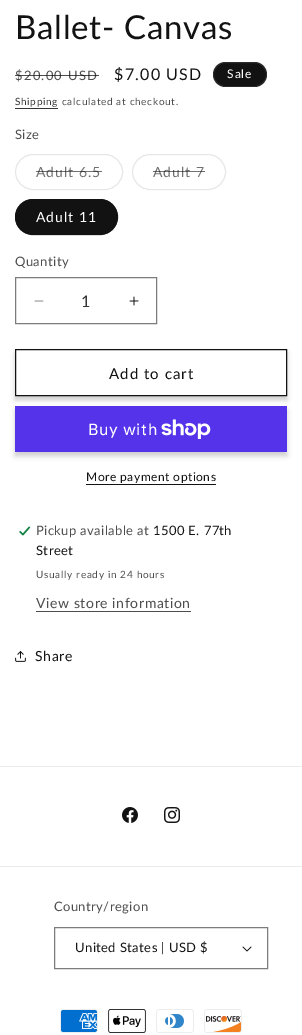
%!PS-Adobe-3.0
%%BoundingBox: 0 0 302 1035
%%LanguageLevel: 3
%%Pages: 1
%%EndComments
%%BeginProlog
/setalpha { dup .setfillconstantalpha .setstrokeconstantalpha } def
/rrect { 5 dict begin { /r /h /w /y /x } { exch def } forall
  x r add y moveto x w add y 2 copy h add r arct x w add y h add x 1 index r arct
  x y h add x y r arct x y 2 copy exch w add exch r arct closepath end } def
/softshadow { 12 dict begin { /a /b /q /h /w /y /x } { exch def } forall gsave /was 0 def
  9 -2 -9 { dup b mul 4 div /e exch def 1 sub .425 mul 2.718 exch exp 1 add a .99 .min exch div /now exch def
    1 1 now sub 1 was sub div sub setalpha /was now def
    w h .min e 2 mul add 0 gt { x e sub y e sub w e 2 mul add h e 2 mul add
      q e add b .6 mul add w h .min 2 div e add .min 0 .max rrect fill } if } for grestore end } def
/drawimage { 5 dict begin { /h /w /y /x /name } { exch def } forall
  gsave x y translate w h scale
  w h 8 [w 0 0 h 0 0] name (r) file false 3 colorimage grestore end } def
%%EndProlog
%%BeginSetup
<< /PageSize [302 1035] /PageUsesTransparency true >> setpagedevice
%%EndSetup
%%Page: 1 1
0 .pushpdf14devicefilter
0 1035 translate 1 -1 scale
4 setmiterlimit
1 setgray
0 0 302 1035 rectfill
0.071 setgray
213 62 54 25 12.5 rrect fill
0.1 setalpha
1 setgray
213.5 62.5 53 24 12 rrect stroke
1 setalpha
0.212 setgray
15 108 43 1 rectfill
0.906 setgray
15.5 154.5 107 35 17.5 rrect stroke
132.5 154.5 93 35 17.5 rrect stroke
0.071 setgray
15 199 103 36 18 rrect fill
0.55 setalpha
15.5 199.5 102 35 17.5 rrect stroke
1 setalpha
(images/1.raw) 34 300 10 2 drawimage
(images/2.raw) 129 296 10 10 drawimage
0.49 setgray
15.5 277.5 141 46 rectstroke
gsave
newpath 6 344 moveto 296 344 lineto 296 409 lineto 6 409 lineto closepath 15 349 moveto 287 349 lineto 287 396 lineto 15 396 lineto closepath eoclip newpath
0.071 setgray
15 353 272 47 0 2.5 0.2 softshadow
grestore
0.071 setgray
15.5 349.5 271 46 rectstroke
15 410 272 46 0 2.5 0.2 softshadow
0.329 0.2 0.922 setrgbcolor
15 406 272 46 rectfill
(images/3.raw) 161 419 50 20 drawimage
0.071 setgray
86 484 130 1 rectfill
(images/4.raw) 18 526 13 10 drawimage
0.302 setgray
36 611 155 1 rectfill
(images/5.raw) 15 651 11 11 drawimage
0.925 setgray
0 766 302 1 rectfill
(images/6.raw) 122 807 16 16 drawimage
(images/7.raw) 164 807 16 16 drawimage
0 866 302 1 rectfill
(images/8.raw) 242 946 10 6 drawimage
0.49 setgray
54.5 927.5 213 41 rectstroke
(images/9.raw) 60 1009 38 24 drawimage
(images/10.raw) 108 1009 38 24 drawimage
(images/11.raw) 156 1009 38 24 drawimage
(images/12.raw) 204 1009 38 24 drawimage
/Lato-Regular [33 0 0 -33 0 0] selectfont
0.071 setgray
15 39 moveto 0.7 0 (Ballet- Canvas) ashow
/Lato-Regular [13 0 0 -13 0 0] selectfont
0.302 setgray
15 80 moveto 1.25 0 ($20.00 USD) ashow
0.75 setalpha
0.071 setgray
15 75 84 1 rectfill
/Lato-Regular [16 0 0 -16 0 0] selectfont
1 setalpha
114 80 moveto 1.25 0 ($7.00 USD) ashow
/Lato-Regular [12 0 0 -12 0 0] selectfont
1 setgray
227 78 moveto 1 0 (Sale) ashow
/Lato-Regular [10 0 0 -10 0 0] selectfont
0.212 setgray
15 105 moveto 0.7 0 (Shipping) ashow
0.302 setgray
62 105 moveto 0.7 0 (calculated at checkout.) ashow
/Lato-Regular [13 0 0 -13 0 0] selectfont
15 139 moveto 0.4 0 (Size) ashow
/Lato-Regular [14 0 0 -14 0 0] selectfont
0.443 setgray
36 177 moveto 1 0 (Adult 6.5) ashow
0.6 setalpha
0.071 setgray
36 171 66 1 rectfill
1 setalpha
0.443 setgray
153 177 moveto 1 0 (Adult 7) ashow
0.6 setalpha
0.071 setgray
153 171 52 1 rectfill
1 setalpha
1 setgray
36 222 moveto 1 0 (Adult 11) ashow
/Lato-Regular [13 0 0 -13 0 0] selectfont
0.302 setgray
15 266 moveto 0.4 0 (Quantity) ashow
/Lato-Regular [16 0 0 -16 0 0] selectfont
0.212 setgray
81 307 moveto (1) show
/Lato-Regular [15 0 0 -15 0 0] selectfont
0.071 setgray
109 379 moveto 1 0 (Add to cart) ashow
/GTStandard-Regular [16 0 0 -16 0 0] selectfont
1 setgray
88 435 moveto 0.6 0 (Buy with) ashow
/Lato-Regular [12 0 0 -12 0 0] selectfont
0.071 setgray
86 481 moveto 0.5 0 (More payment options) ashow
/Lato-Regular [13 0 0 -13 0 0] selectfont
0.302 setgray
36 535 moveto 0.4 0 (Pickup available at) ashow
0.071 setgray
153 535 moveto 0.4 0 (1500 E. 77th) ashow
36 555 moveto 0.4 0 (Street) ashow
/Lato-Regular [10 0 0 -10 0 0] selectfont
0.302 setgray
36 578 moveto 0.7 0 (Usually ready in 24 hours) ashow
/Lato-Regular [14 0 0 -14 0 0] selectfont
36 608 moveto 0.6 0 (View store information) ashow
0.071 setgray
35 661 moveto 0.6 0 (Share) ashow
/Lato-Regular [13 0 0 -13 0 0] selectfont
0.302 setgray
54 911 moveto 0.4 0 (Country/region) ashow
0.071 setgray
75 952 moveto 0.4 0 (United States | USD $) ashow
.poppdf14devicefilter showpage
%%EOF
